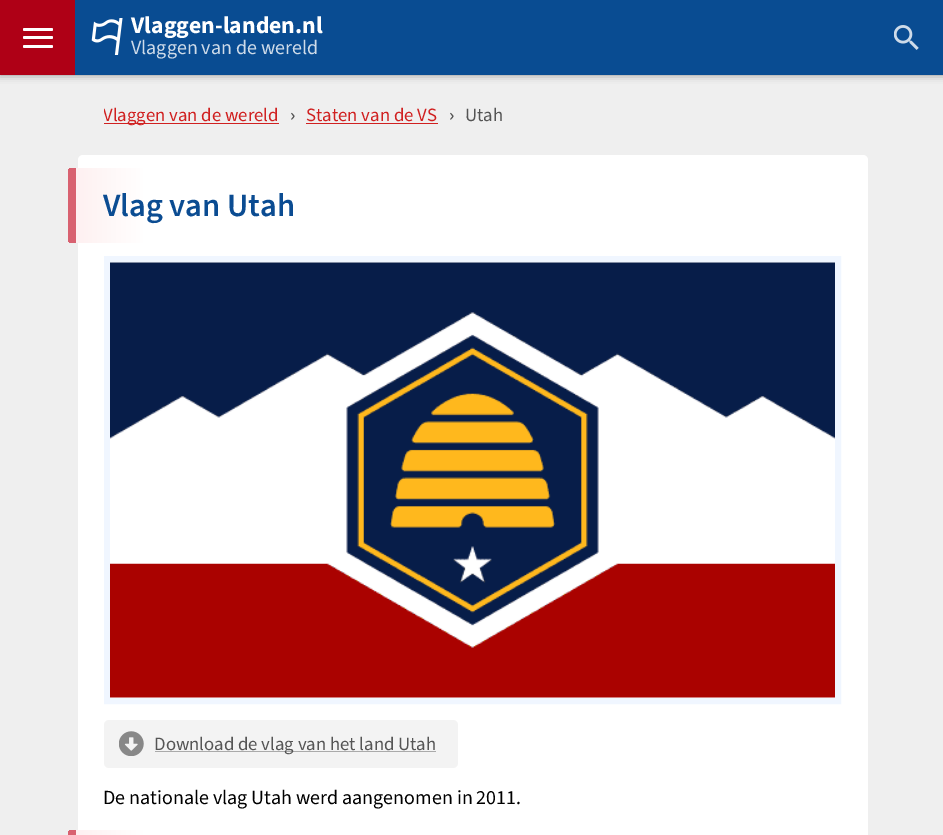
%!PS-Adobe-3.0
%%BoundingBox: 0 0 943 835
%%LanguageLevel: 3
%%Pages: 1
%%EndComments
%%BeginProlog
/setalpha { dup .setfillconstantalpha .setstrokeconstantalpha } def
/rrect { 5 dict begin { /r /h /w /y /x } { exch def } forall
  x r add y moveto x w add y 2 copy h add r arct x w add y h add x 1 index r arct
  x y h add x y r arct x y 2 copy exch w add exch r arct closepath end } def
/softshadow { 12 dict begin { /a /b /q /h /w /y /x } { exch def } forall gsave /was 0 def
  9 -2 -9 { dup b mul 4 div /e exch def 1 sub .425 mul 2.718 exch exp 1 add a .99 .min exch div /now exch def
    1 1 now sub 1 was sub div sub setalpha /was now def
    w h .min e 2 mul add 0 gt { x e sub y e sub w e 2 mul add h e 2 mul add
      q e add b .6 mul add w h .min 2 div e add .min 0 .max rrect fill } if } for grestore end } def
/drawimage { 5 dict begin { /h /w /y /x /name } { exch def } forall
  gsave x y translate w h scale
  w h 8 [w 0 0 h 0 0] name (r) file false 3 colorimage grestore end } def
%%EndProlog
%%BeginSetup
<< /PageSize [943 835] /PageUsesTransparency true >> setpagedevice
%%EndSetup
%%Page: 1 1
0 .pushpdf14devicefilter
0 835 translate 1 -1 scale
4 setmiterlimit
0.937 setgray
0 0 943 835 rectfill
0 setgray
0 0 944 75 0 4 0.4 softshadow
0.035 0.298 0.573 setrgbcolor
75 0 868 75 rectfill
0.686 0 0.086 setrgbcolor
0 0 75 75 rectfill
1 setgray
23 28 30 3 1.5 rrect fill
23 36 30 3 1.5 rrect fill
23 45 30 3 1.5 rrect fill
(images/1.raw) 91 18 32 37 drawimage
(images/2.raw) 894 25 25 25 drawimage
0.816 0.125 0.125 setrgbcolor
104 123 175 1 rectfill
306 123 132 1 rectfill
1 setgray
78 155 790 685 5 rrect fill
gsave newpath 73 168 moveto 841 168 lineto 841 243 lineto 73 243 lineto 70 243 68 241 68 238 curveto 68 173 lineto 68 170 70 168 73 168 curveto closepath clip newpath
<< /ShadingType 2 /ColorSpace /DeviceRGB /Coords [68 205 841 205] /Extend [true true] /Function << /FunctionType 3 /Domain [0 1] /Functions [<< /FunctionType 2 /Domain [0 1] /C0 [0.847 0.38 0.439] /C1 [0.847 0.38 0.439] /N 1 >> << /FunctionType 2 /Domain [0 1] /C0 [0.996 0.941 0.945] /C1 [1 1 1] /N 1 >> << /FunctionType 2 /Domain [0 1] /C0 [1 1 1] /C1 [1 1 1] /N 1 >>] /Bounds [0.01 0.1] /Encode [0 1 0 1 0 1] >> >> shfill grestore
0.941 0.965 1 setrgbcolor
6 setlinewidth
107 259 731 442 rectstroke
(images/3.raw) 110 262 725 436 drawimage
0.953 setgray
104 720 354 48 5 rrect fill
(images/4.raw) 119 731 25 25 drawimage
0.667 setgray
155 751 281 1 rectfill
gsave newpath 73 830 moveto 841 830 lineto 841 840 lineto 73 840 lineto 70 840 68 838 68 835 curveto 68 832 70 830 73 830 curveto closepath clip newpath
<< /ShadingType 2 /ColorSpace /DeviceRGB /Coords [68 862 841 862] /Extend [true true] /Function << /FunctionType 3 /Domain [0 1] /Functions [<< /FunctionType 2 /Domain [0 1] /C0 [0.847 0.38 0.439] /C1 [0.847 0.38 0.439] /N 1 >> << /FunctionType 2 /Domain [0 1] /C0 [0.996 0.941 0.945] /C1 [1 1 1] /N 1 >> << /FunctionType 2 /Domain [0 1] /C0 [1 1 1] /C1 [1 1 1] /N 1 >>] /Bounds [0.01 0.1] /Encode [0 1 0 1 0 1] >> >> shfill grestore
/SourceSans3-Bold [23.75 0 0 -23.75 0 0] selectfont
1 setgray
131 33 moveto (Vlaggen-landen.nl) show
/SourceSans3-Regular [20 0 0 -20 0 0] selectfont
0.808 0.859 0.914 setrgbcolor
131 54 moveto (Vlaggen van de wereld) show
gsave
104 94 737 42 rectclip
/SourceSans3-Regular [18.75 0 0 -18.75 0 0] selectfont
0.816 0.125 0.125 setrgbcolor
103 121 moveto (Vlaggen van de wereld) show
grestore
/SourceSans3-SemiBold [18.75 0 0 -18.75 0 0] selectfont
0.333 setgray
290 121 moveto (›) show
/SourceSans3-Regular [18.75 0 0 -18.75 0 0] selectfont
0.816 0.125 0.125 setrgbcolor
306 121 moveto (Staten van de VS) show
/SourceSans3-SemiBold [18.75 0 0 -18.75 0 0] selectfont
0.333 setgray
449 121 moveto (›) show
/SourceSans3-Regular [18.75 0 0 -18.75 0 0] selectfont
465 121 moveto (Utah) show
/SourceSans3-SemiBold [32.5 0 0 -32.5 0 0] selectfont
0.043 0.298 0.573 setrgbcolor
103 216 moveto (Vlag van Utah) show
/SourceSans3-Regular [18.75 0 0 -18.75 0 0] selectfont
0.333 setgray
154 750 moveto (Download de vlag van het land Utah) show
/SourceSans3-Regular [20 0 0 -20 0 0] selectfont
0 setgray
103 804 moveto (De nationale vlag Utah werd aangenomen in 2011.) show
.poppdf14devicefilter showpage
%%EOF
